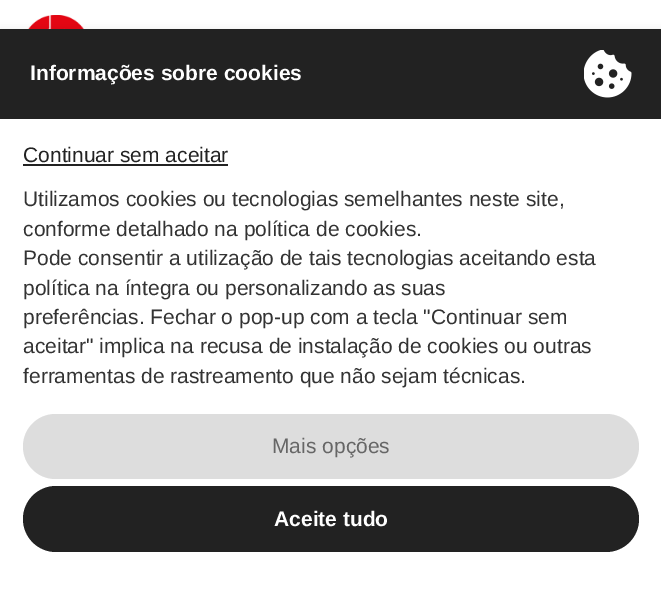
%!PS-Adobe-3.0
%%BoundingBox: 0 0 661 596
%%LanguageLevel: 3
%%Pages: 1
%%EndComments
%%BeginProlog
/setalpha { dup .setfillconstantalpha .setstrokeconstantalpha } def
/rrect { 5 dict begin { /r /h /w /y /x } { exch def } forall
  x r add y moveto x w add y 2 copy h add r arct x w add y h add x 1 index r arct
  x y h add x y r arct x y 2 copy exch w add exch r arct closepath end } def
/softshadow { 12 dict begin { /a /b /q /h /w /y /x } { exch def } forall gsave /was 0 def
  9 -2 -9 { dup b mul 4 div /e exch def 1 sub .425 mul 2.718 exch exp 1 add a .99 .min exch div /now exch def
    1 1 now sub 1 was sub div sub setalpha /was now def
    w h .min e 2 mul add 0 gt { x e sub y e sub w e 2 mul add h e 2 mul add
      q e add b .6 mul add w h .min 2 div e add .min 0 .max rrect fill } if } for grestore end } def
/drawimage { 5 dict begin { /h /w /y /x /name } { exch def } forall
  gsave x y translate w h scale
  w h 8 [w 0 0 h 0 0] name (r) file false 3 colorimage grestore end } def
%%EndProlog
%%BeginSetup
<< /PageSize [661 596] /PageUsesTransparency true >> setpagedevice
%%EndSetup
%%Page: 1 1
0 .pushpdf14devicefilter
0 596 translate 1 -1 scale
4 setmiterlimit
1 setgray
0 0 661 596 rectfill
(images/1.raw) 22 15 202 14 drawimage
0 setgray
0 32 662 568 0 4.5 0.15 softshadow
1 setgray
0 119 661 477 rectfill
0.133 setgray
0 29 661 90 rectfill
(images/2.raw) 584 50 48 48 drawimage
23 164 205 2 rectfill
0.867 setgray
23 414 616 65 32.5 rrect fill
0.133 setgray
23 486 616 66 33 rrect fill
/LiberationSans-Bold [21 0 0 -21 0 0] selectfont
1 setgray
30 80 moveto (Informações sobre cookies) show
/LiberationSans-Regular [21 0 0 -21 0 0] selectfont
0.133 setgray
23 162 moveto (Continuar sem aceitar) show
0.2 setgray
23 206 moveto (Utilizamos cookies ou tecnologias semelhantes neste site,) show
23 236 moveto (conforme detalhado na política de cookies.) show
23 265 moveto (Pode consentir a utilização de tais tecnologias aceitando esta) show
23 295 moveto (política na íntegra ou personalizando as suas) show
23 324 moveto (preferências. Fechar o pop-up com a tecla "Continuar sem) show
23 353 moveto (aceitar" implica na recusa de instalação de cookies ou outras) show
23 383 moveto (ferramentas de rastreamento que não sejam técnicas.) show
0.4 setgray
272 453 moveto (Mais opções) show
/LiberationSans-Bold [21 0 0 -21 0 0] selectfont
1 setgray
274 526 moveto (Aceite tudo) show
.poppdf14devicefilter showpage
%%EOF
